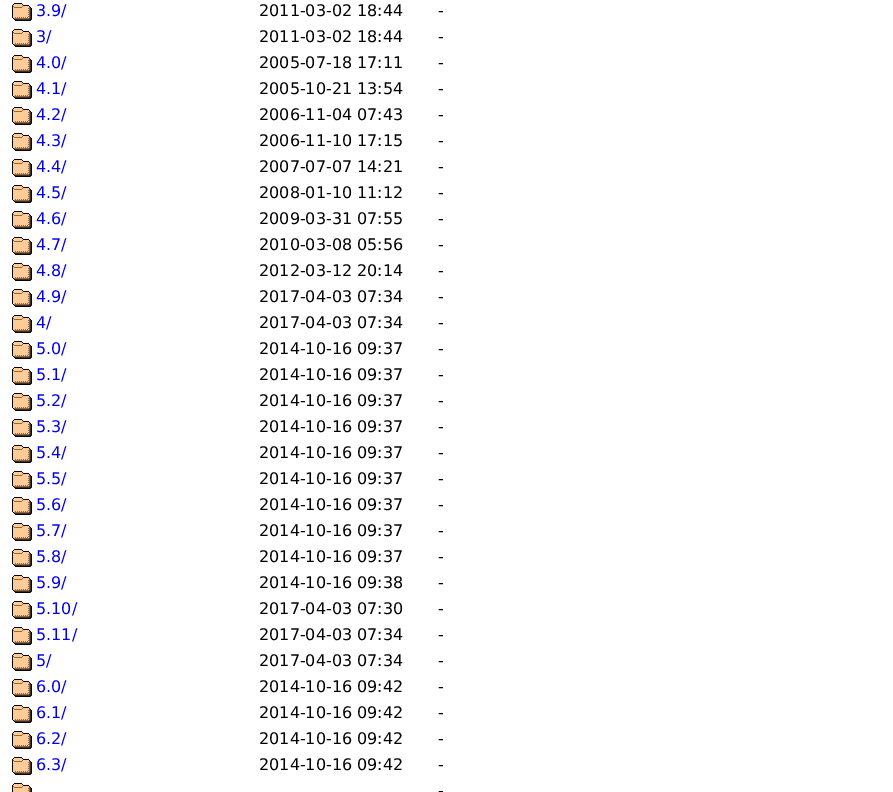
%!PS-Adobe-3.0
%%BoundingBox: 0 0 893 792
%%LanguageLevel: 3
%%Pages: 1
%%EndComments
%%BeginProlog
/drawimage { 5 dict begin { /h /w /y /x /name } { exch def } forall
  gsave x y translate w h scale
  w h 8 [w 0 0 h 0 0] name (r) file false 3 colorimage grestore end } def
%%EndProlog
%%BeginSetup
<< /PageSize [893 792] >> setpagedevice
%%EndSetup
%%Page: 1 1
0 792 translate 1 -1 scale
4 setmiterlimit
1 setgray
0 0 893 792 rectfill
(images/1.raw) 12 3 20 18 drawimage
(images/1.raw) 12 29 20 18 drawimage
(images/1.raw) 12 55 20 18 drawimage
(images/1.raw) 12 81 20 18 drawimage
(images/1.raw) 12 107 20 18 drawimage
(images/1.raw) 12 133 20 18 drawimage
(images/1.raw) 12 159 20 18 drawimage
(images/1.raw) 12 185 20 18 drawimage
(images/1.raw) 12 211 20 18 drawimage
(images/1.raw) 12 237 20 18 drawimage
(images/1.raw) 12 263 20 18 drawimage
(images/1.raw) 12 289 20 18 drawimage
(images/1.raw) 12 315 20 18 drawimage
(images/1.raw) 12 341 20 18 drawimage
(images/1.raw) 12 367 20 18 drawimage
(images/1.raw) 12 393 20 18 drawimage
(images/1.raw) 12 419 20 18 drawimage
(images/1.raw) 12 445 20 18 drawimage
(images/1.raw) 12 471 20 18 drawimage
(images/1.raw) 12 497 20 18 drawimage
(images/1.raw) 12 523 20 18 drawimage
(images/1.raw) 12 549 20 18 drawimage
(images/1.raw) 12 575 20 18 drawimage
(images/1.raw) 12 601 20 18 drawimage
(images/1.raw) 12 627 20 18 drawimage
(images/1.raw) 12 653 20 18 drawimage
(images/1.raw) 12 679 20 18 drawimage
(images/1.raw) 12 705 20 18 drawimage
(images/1.raw) 12 731 20 18 drawimage
(images/1.raw) 12 757 20 18 drawimage
(images/2.raw) 12 783 20 9 drawimage
/DejaVuSans-Regular [16 0 0 -16 0 0] selectfont
0 0 0.933 setrgbcolor
36 16 moveto (3.9/) show
0 setgray
259 16 moveto (2011-03-02 18:44) show
438 16 moveto (-) show
0 0 0.933 setrgbcolor
36 42 moveto (3/) show
0 setgray
259 42 moveto (2011-03-02 18:44) show
438 42 moveto (-) show
0 0 0.933 setrgbcolor
36 68 moveto (4.0/) show
0 setgray
259 68 moveto (2005-07-18 17:11) show
438 68 moveto (-) show
0 0 0.933 setrgbcolor
36 94 moveto (4.1/) show
0 setgray
259 94 moveto (2005-10-21 13:54) show
438 94 moveto (-) show
0 0 0.933 setrgbcolor
36 120 moveto (4.2/) show
0 setgray
259 120 moveto (2006-11-04 07:43) show
438 120 moveto (-) show
0 0 0.933 setrgbcolor
36 146 moveto (4.3/) show
0 setgray
259 146 moveto (2006-11-10 17:15) show
438 146 moveto (-) show
0 0 0.933 setrgbcolor
36 172 moveto (4.4/) show
0 setgray
259 172 moveto (2007-07-07 14:21) show
438 172 moveto (-) show
0 0 0.933 setrgbcolor
36 198 moveto (4.5/) show
0 setgray
259 198 moveto (2008-01-10 11:12) show
438 198 moveto (-) show
0 0 0.933 setrgbcolor
36 224 moveto (4.6/) show
0 setgray
259 224 moveto (2009-03-31 07:55) show
438 224 moveto (-) show
0 0 0.933 setrgbcolor
36 250 moveto (4.7/) show
0 setgray
259 250 moveto (2010-03-08 05:56) show
438 250 moveto (-) show
0 0 0.933 setrgbcolor
36 276 moveto (4.8/) show
0 setgray
259 276 moveto (2012-03-12 20:14) show
438 276 moveto (-) show
0 0 0.933 setrgbcolor
36 302 moveto (4.9/) show
0 setgray
259 302 moveto (2017-04-03 07:34) show
438 302 moveto (-) show
0 0 0.933 setrgbcolor
36 328 moveto (4/) show
0 setgray
259 328 moveto (2017-04-03 07:34) show
438 328 moveto (-) show
0 0 0.933 setrgbcolor
36 354 moveto (5.0/) show
0 setgray
259 354 moveto (2014-10-16 09:37) show
438 354 moveto (-) show
0 0 0.933 setrgbcolor
36 380 moveto (5.1/) show
0 setgray
259 380 moveto (2014-10-16 09:37) show
438 380 moveto (-) show
0 0 0.933 setrgbcolor
36 406 moveto (5.2/) show
0 setgray
259 406 moveto (2014-10-16 09:37) show
438 406 moveto (-) show
0 0 0.933 setrgbcolor
36 432 moveto (5.3/) show
0 setgray
259 432 moveto (2014-10-16 09:37) show
438 432 moveto (-) show
0 0 0.933 setrgbcolor
36 458 moveto (5.4/) show
0 setgray
259 458 moveto (2014-10-16 09:37) show
438 458 moveto (-) show
0 0 0.933 setrgbcolor
36 484 moveto (5.5/) show
0 setgray
259 484 moveto (2014-10-16 09:37) show
438 484 moveto (-) show
0 0 0.933 setrgbcolor
36 510 moveto (5.6/) show
0 setgray
259 510 moveto (2014-10-16 09:37) show
438 510 moveto (-) show
0 0 0.933 setrgbcolor
36 536 moveto (5.7/) show
0 setgray
259 536 moveto (2014-10-16 09:37) show
438 536 moveto (-) show
0 0 0.933 setrgbcolor
36 562 moveto (5.8/) show
0 setgray
259 562 moveto (2014-10-16 09:37) show
438 562 moveto (-) show
0 0 0.933 setrgbcolor
36 588 moveto (5.9/) show
0 setgray
259 588 moveto (2014-10-16 09:38) show
438 588 moveto (-) show
0 0 0.933 setrgbcolor
36 614 moveto (5.10/) show
0 setgray
259 614 moveto (2017-04-03 07:30) show
438 614 moveto (-) show
0 0 0.933 setrgbcolor
36 640 moveto (5.11/) show
0 setgray
259 640 moveto (2017-04-03 07:34) show
438 640 moveto (-) show
0 0 0.933 setrgbcolor
36 666 moveto (5/) show
0 setgray
259 666 moveto (2017-04-03 07:34) show
438 666 moveto (-) show
0 0 0.933 setrgbcolor
36 692 moveto (6.0/) show
0 setgray
259 692 moveto (2014-10-16 09:42) show
438 692 moveto (-) show
0 0 0.933 setrgbcolor
36 718 moveto (6.1/) show
0 setgray
259 718 moveto (2014-10-16 09:42) show
438 718 moveto (-) show
0 0 0.933 setrgbcolor
36 744 moveto (6.2/) show
0 setgray
259 744 moveto (2014-10-16 09:42) show
438 744 moveto (-) show
0 0 0.933 setrgbcolor
36 770 moveto (6.3/) show
0 setgray
259 770 moveto (2014-10-16 09:42) show
438 770 moveto (-) show
438 796 moveto (-) show
showpage
%%EOF
